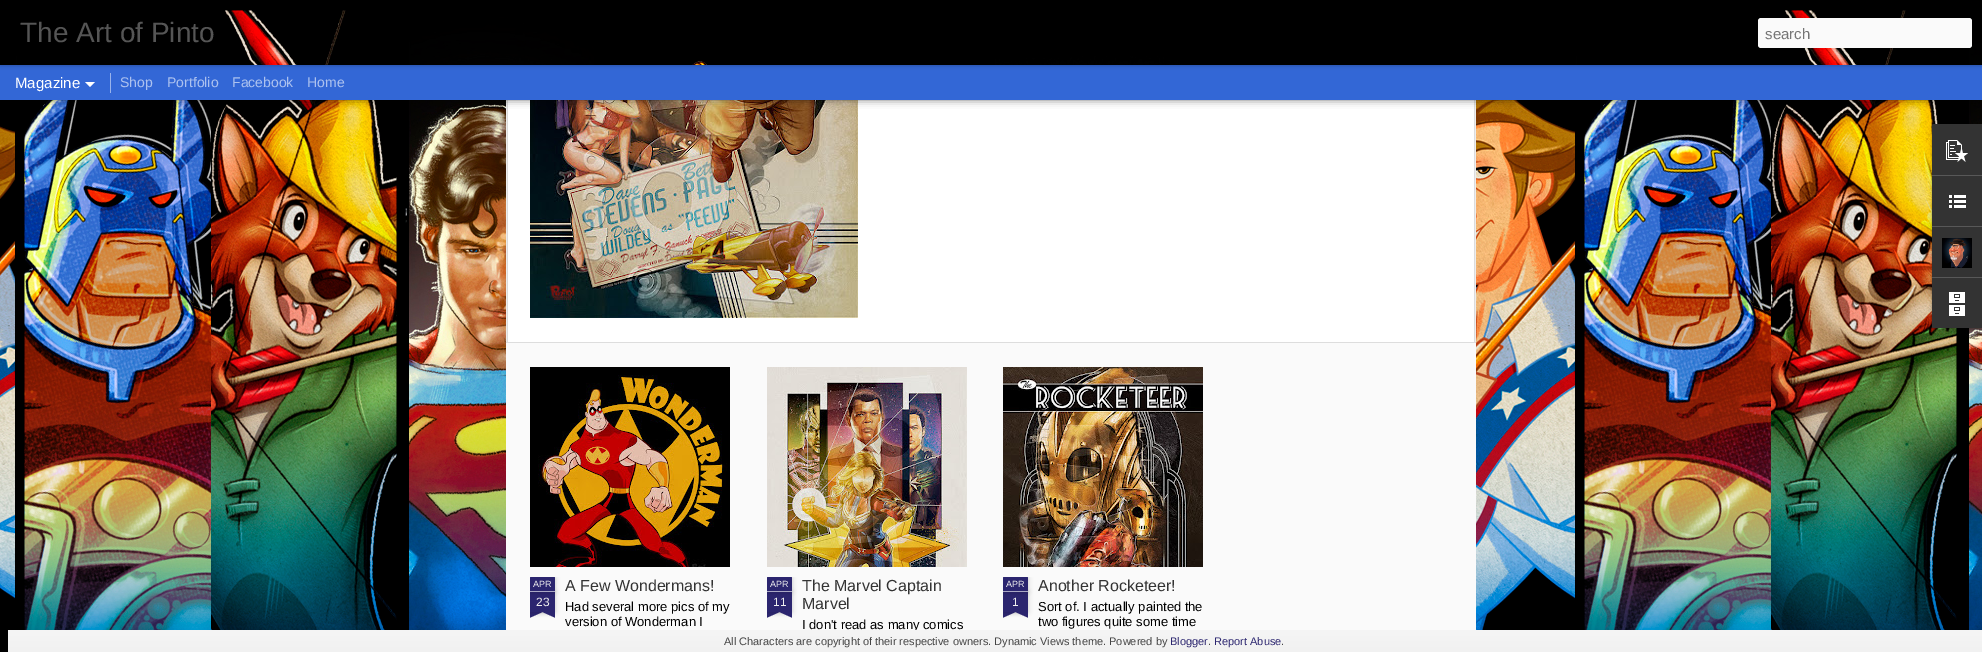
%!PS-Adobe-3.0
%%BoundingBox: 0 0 1982 652
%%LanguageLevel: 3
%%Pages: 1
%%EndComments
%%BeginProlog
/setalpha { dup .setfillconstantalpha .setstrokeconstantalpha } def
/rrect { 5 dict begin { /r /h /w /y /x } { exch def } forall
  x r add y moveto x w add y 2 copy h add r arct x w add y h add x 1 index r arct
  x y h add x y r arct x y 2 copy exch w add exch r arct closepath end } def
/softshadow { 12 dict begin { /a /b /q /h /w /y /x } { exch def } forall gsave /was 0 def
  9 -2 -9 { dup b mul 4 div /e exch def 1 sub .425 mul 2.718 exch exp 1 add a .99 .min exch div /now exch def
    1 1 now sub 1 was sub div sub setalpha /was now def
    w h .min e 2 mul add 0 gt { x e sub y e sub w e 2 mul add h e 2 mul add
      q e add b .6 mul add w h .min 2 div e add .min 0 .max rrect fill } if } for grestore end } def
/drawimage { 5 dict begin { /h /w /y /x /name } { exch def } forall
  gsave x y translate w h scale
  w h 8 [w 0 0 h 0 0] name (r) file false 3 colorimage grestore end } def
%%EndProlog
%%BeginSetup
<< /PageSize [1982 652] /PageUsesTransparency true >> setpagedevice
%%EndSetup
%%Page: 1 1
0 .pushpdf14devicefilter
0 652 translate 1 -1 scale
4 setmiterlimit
1 setgray
0 0 1982 652 rectfill
(images/1.raw) 0 100 1982 552 drawimage
506 100 970 242 rectfill
(images/7.raw) 506 100 970 242 drawimage
(images/8.raw) 530 100 328 218 drawimage
0 setgray
0 65 1982 35 0 4 0.5 softshadow
0.2 0.404 0.839 setrgbcolor
0 65 1982 35 rectfill
0.6 0.702 0.922 setrgbcolor
110 73 1 20 rectfill
0 setgray
0 0 1982 65 0 2.5 0.3 softshadow
(images/2.raw) 0 0 1982 65 drawimage
0.98 setgray
1758 18 214 30 3 rrect fill
1 setgray
newpath 85 82 moveto 95 82 lineto 90 87 lineto closepath fill
0 setgray
1932 125 50 204 2 1.5 0.3 softshadow
0.2 setgray
newpath 1934 124 moveto 1982 124 lineto 1982 328 lineto 1934 328 lineto 1933 328 1932 327 1932 326 curveto 1932 126 lineto 1932 125 1933 124 1934 124 curveto closepath fill
newpath 1934 124 moveto 1982 124 lineto 1982 175 lineto 1932 175 lineto 1932 126 lineto 1932 125 1933 124 1934 124 curveto closepath fill
(images/3.raw) 1946 140 22 22 drawimage
0.345 setgray
1932 175 50 1 rectfill
(images/4.raw) 1949 195 17 13 drawimage
1932 226 50 1 rectfill
(images/5.raw) 1942 238 30 30 drawimage
0.2 setgray
newpath 1932 277 moveto 1982 277 lineto 1982 328 lineto 1934 328 lineto 1933 328 1932 327 1932 326 curveto closepath fill
0.345 setgray
1932 277 50 1 rectfill
(images/6.raw) 1949 292 16 24 drawimage
0.98 setgray
506 343 970 287 rectfill
0.867 setgray
506 342 970 1 rectfill
(images/9.raw) 530 367 200 200 drawimage
gsave
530 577 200 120 rectclip
0 setgray
530 592 25 20 0 2.5 0.2 softshadow
grestore
0.169 0.145 0.435 setrgbcolor
530 592 25 20 rectfill
gsave
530 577 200 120 rectclip
0 setgray
530 577 25 15 1 2.5 0.2 softshadow
grestore
newpath 531 577 moveto 554 577 lineto 554.5 577 555 577.5 555 578 curveto 555 592 lineto 530 592 lineto 530 578 lineto 530 577.5 530.5 577 531 577 curveto closepath fill
0.667 0.659 0.773 setrgbcolor
530 591 25 1 rectfill
gsave
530 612 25 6 rectclip
0 setgray
524 605 40 6 0 2.5 0.2 softshadow
grestore
gsave
530 612 25 6 rectclip
0.169 0.145 0.435 setrgbcolor
newpath 524.5 613.5 moveto 561 597 lineto 563.5 602.5 lineto 527 619 lineto closepath fill
grestore
gsave
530 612 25 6 rectclip
0 setgray
521 605 40 6 0 2.5 0.2 softshadow
grestore
gsave
530 612 25 6 rectclip
0.169 0.145 0.435 setrgbcolor
newpath 524 597 moveto 560.5 613.5 lineto 558 619 lineto 521.5 602.5 lineto closepath fill
grestore
(images/10.raw) 767 367 200 200 drawimage
gsave
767 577 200 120 rectclip
0 setgray
767 592 25 20 0 2.5 0.2 softshadow
grestore
0.169 0.145 0.435 setrgbcolor
767 592 25 20 rectfill
gsave
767 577 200 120 rectclip
0 setgray
767 577 25 15 1 2.5 0.2 softshadow
grestore
newpath 768 577 moveto 791 577 lineto 791.5 577 792 577.5 792 578 curveto 792 592 lineto 767 592 lineto 767 578 lineto 767 577.5 767.5 577 768 577 curveto closepath fill
0.667 0.659 0.773 setrgbcolor
767 591 25 1 rectfill
gsave
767 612 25 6 rectclip
0 setgray
761 605 40 6 0 2.5 0.2 softshadow
grestore
gsave
767 612 25 6 rectclip
0.169 0.145 0.435 setrgbcolor
newpath 761.5 613.5 moveto 798 597 lineto 800.5 602.5 lineto 764 619 lineto closepath fill
grestore
gsave
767 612 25 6 rectclip
0 setgray
758 605 40 6 0 2.5 0.2 softshadow
grestore
gsave
767 612 25 6 rectclip
0.169 0.145 0.435 setrgbcolor
newpath 761 597 moveto 797.5 613.5 lineto 795 619 lineto 758.5 602.5 lineto closepath fill
grestore
(images/11.raw) 1003 367 200 200 drawimage
gsave
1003 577 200 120 rectclip
0 setgray
1003 592 25 20 0 2.5 0.2 softshadow
grestore
0.169 0.145 0.435 setrgbcolor
1003 592 25 20 rectfill
gsave
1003 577 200 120 rectclip
0 setgray
1003 577 25 15 1 2.5 0.2 softshadow
grestore
newpath 1004 577 moveto 1027 577 lineto 1027.5 577 1028 577.5 1028 578 curveto 1028 592 lineto 1003 592 lineto 1003 578 lineto 1003 577.5 1003.5 577 1004 577 curveto closepath fill
0.667 0.659 0.773 setrgbcolor
1003 591 25 1 rectfill
gsave
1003 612 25 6 rectclip
0 setgray
997 605 40 6 0 2.5 0.2 softshadow
grestore
gsave
1003 612 25 6 rectclip
0.169 0.145 0.435 setrgbcolor
newpath 997.5 613.5 moveto 1034 597 lineto 1036.5 602.5 lineto 1000 619 lineto closepath fill
grestore
gsave
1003 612 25 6 rectclip
0 setgray
994 605 40 6 0 2.5 0.2 softshadow
grestore
gsave
1003 612 25 6 rectclip
0.169 0.145 0.435 setrgbcolor
newpath 997 597 moveto 1033.5 613.5 lineto 1031 619 lineto 994.5 602.5 lineto closepath fill
grestore
/LiberationSans-Regular [28 0 0 -28 0 0] selectfont
0.333 setgray
20 42 moveto (The Art of Pinto) show
/LiberationSans-Regular [15 0 0 -15 0 0] selectfont
0.459 setgray
1765 39 moveto (search) show
1 setgray
15 88 moveto (Magazine) show
/LiberationSans-Regular [14 0 0 -14 0 0] selectfont
0.678 0.761 0.937 setrgbcolor
120 87 moveto (Shop) show
167 87 moveto (Portfolio) show
232 87 moveto (Facebook) show
307 87 moveto (Home) show
/LiberationSans-Regular [9 0 0 -9 0 0] selectfont
0.933 setgray
533 587 moveto (APR) show
/LiberationSans-Regular [12 0 0 -12 0 0] selectfont
536 606 moveto (23) show
/LiberationSans-Regular [16 0 0 -16 0 0] selectfont
0.2 setgray
565 591 moveto (A Few Wondermans!) show
/LiberationSans-Regular [13 0 0 -13 0 0] selectfont
0 setgray
565 611 moveto (Had several more pics of my) show
565 626 moveto (version of Wonderman I) show
/LiberationSans-Regular [9 0 0 -9 0 0] selectfont
0.933 setgray
770 587 moveto (APR) show
/LiberationSans-Regular [12 0 0 -12 0 0] selectfont
773 606 moveto (11) show
/LiberationSans-Regular [16 0 0 -16 0 0] selectfont
0.2 setgray
802 591 moveto (The Marvel Captain) show
802 609 moveto (Marvel) show
/LiberationSans-Regular [13 0 0 -13 0 0] selectfont
0 setgray
802 629 moveto (I don't read as many comics) show
/LiberationSans-Regular [9 0 0 -9 0 0] selectfont
0.933 setgray
1006 587 moveto (APR) show
/LiberationSans-Regular [12 0 0 -12 0 0] selectfont
1012 606 moveto (1) show
/LiberationSans-Regular [16 0 0 -16 0 0] selectfont
0.2 setgray
1038 591 moveto (Another Rocketeer!) show
/LiberationSans-Regular [13 0 0 -13 0 0] selectfont
0 setgray
1038 611 moveto (Sort of. I actually painted the) show
1038 626 moveto (two figures quite some time) show
gsave newpath 8 630 moveto 1982 630 lineto 1982 652 lineto 8 652 lineto closepath clip newpath
<< /ShadingType 2 /ColorSpace /DeviceRGB /Coords [1004 630 1004 652] /Extend [true true] /Function << /FunctionType 2 /Domain [0 1] /C0 [0.961 0.961 0.961] /C1 [0.945 0.945 0.945] /N 1 >> >> shfill grestore
/LiberationSans-Regular [11 0 0 -11 0 0] selectfont
0.267 setgray
724 645 moveto (All Characters are copyright of their respective owners. Dynamic Views theme. Powered by) show
0.169 0.145 0.435 setrgbcolor
1170 645 moveto (Blogger) show
0.267 setgray
1208 645 moveto (.) show
0.169 0.145 0.435 setrgbcolor
1214 645 moveto (Report Abuse) show
0.267 setgray
1281 645 moveto (.) show
.poppdf14devicefilter showpage
%%EOF
